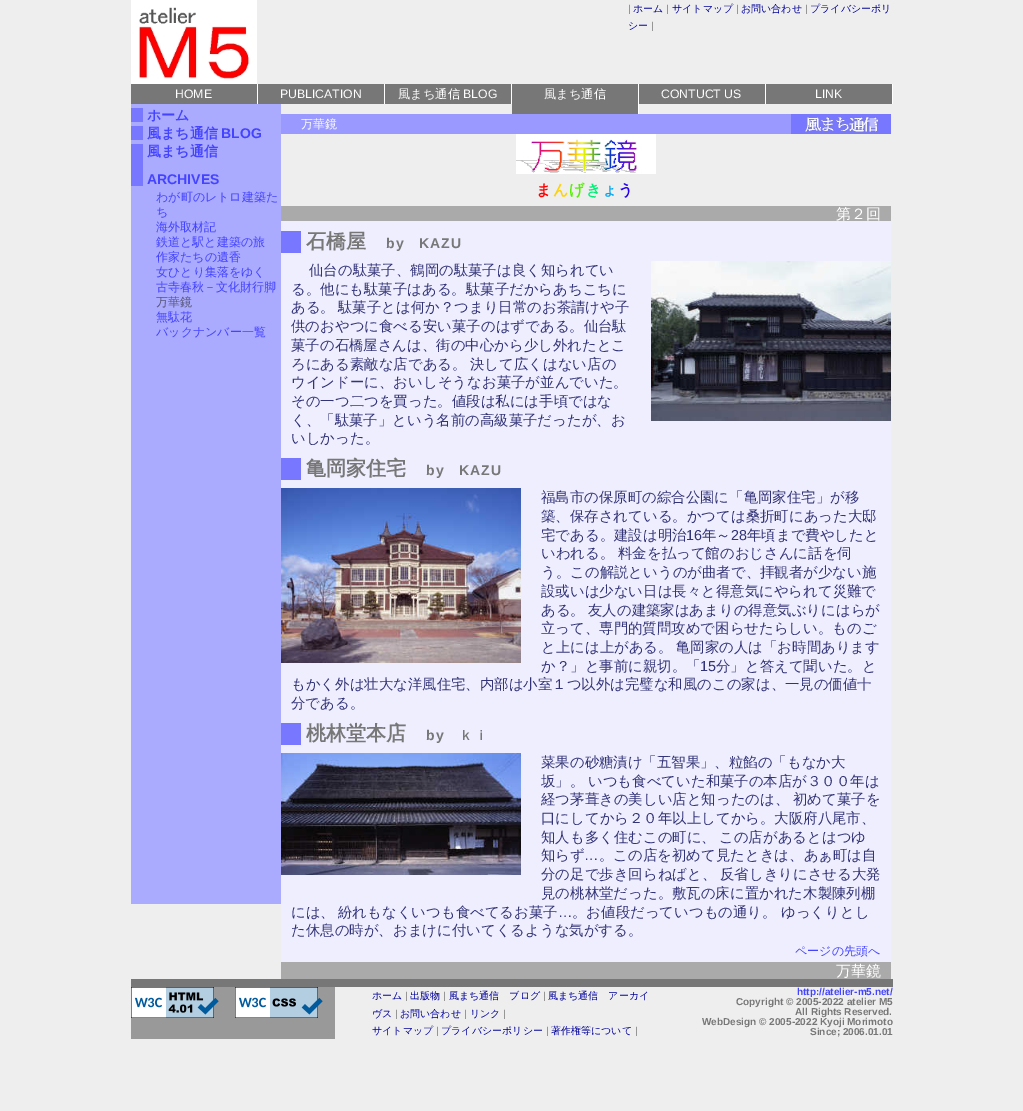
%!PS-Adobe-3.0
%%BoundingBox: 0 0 1023 1111
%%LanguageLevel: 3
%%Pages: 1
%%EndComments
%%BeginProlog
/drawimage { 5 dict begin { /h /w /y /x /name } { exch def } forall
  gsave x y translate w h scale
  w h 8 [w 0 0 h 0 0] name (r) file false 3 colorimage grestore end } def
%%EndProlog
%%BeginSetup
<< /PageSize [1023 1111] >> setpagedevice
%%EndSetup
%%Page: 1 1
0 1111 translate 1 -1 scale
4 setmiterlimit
0.933 setgray
0 0 1023 1111 rectfill
(images/1.raw) 131 0 126 84 drawimage
0.467 setgray
131 84 761 20 rectfill
1 setgray
257 84 1 20 rectfill
384 84 1 20 rectfill
511 84 1 20 rectfill
0.467 setgray
512 104 126 10 rectfill
1 setgray
638 84 1 30 rectfill
765 84 1 20 rectfill
892 84 1 20 rectfill
0.667 0.667 1 setrgbcolor
131 104 150 800 rectfill
0.467 0.467 1 setrgbcolor
131 108 12 14 rectfill
131 126 12 14 rectfill
131 144 12 42 rectfill
0.6 0.6 1 setrgbcolor
281 114 510 20 rectfill
(images/2.raw) 791 114 100 20 drawimage
(images/3.raw) 516 134 140 40 drawimage
0.667 setgray
281 206 610 15 rectfill
0.933 0.933 1 setrgbcolor
281 221 610 741 rectfill
0.467 0.467 1 setrgbcolor
281 231 20 22 rectfill
(images/4.raw) 651 261 240 160 drawimage
281 458 20 22 rectfill
(images/5.raw) 281 488 240 175 drawimage
281 723 20 22 rectfill
(images/6.raw) 281 753 240 122 drawimage
0.667 setgray
281 962 610 17 rectfill
0.467 setgray
131 979 762 8 rectfill
0.6 setgray
131 987 204 52 rectfill
(images/7.raw) 131 987 88 31 drawimage
(images/8.raw) 235 987 88 31 drawimage
/LiberationSans-Regular [10 0 0 -10 0 0] selectfont
0.467 setgray
628 12 moveto (|) show
/WenQuanYiZenHei-Medium [10 0 0 -10 0 0] selectfont
0 0 0.6 setrgbcolor
633 12 moveto (ホーム) show
/LiberationSans-Regular [10 0 0 -10 0 0] selectfont
0.467 setgray
666 12 moveto (|) show
/WenQuanYiZenHei-Medium [10 0 0 -10 0 0] selectfont
0 0 0.6 setrgbcolor
672 12 moveto (サイトマップ) show
/LiberationSans-Regular [10 0 0 -10 0 0] selectfont
0.467 setgray
736 12 moveto (|) show
/WenQuanYiZenHei-Medium [10 0 0 -10 0 0] selectfont
0 0 0.6 setrgbcolor
741 12 moveto (お問い合わせ) show
/LiberationSans-Regular [10 0 0 -10 0 0] selectfont
0.467 setgray
805 12 moveto (|) show
/WenQuanYiZenHei-Medium [10 0 0 -10 0 0] selectfont
0 0 0.6 setrgbcolor
810 12 moveto (プライバシーポリ) show
628 29 moveto (シー) show
/LiberationSans-Regular [10 0 0 -10 0 0] selectfont
0.467 setgray
651 29 moveto (|) show
/LiberationSans-Regular [12.25 0 0 -12.25 0 0] selectfont
1 setgray
175 98 moveto (HOME) show
280 98 moveto (PUBLICATION) show
/WenQuanYiZenHei-Medium [12.25 0 0 -12.25 0 0] selectfont
398 98 moveto (風まち通信) show
/LiberationSans-Regular [12.25 0 0 -12.25 0 0] selectfont
463 98 moveto (BLOG) show
/WenQuanYiZenHei-Medium [12.25 0 0 -12.25 0 0] selectfont
544 98 moveto (風まち通信) show
/LiberationSans-Regular [12.25 0 0 -12.25 0 0] selectfont
661 98 moveto (CONTUCT US) show
815 98 moveto (LINK) show
/WenQuanYiZenHei-Bold [14 0 0 -14 0 0] selectfont
0.267 0.267 1 setrgbcolor
147 120 moveto (ホーム) show
147 138 moveto (風まち通信) show
/LiberationSans-Bold [14 0 0 -14 0 0] selectfont
221 138 moveto (BLOG) show
/WenQuanYiZenHei-Bold [14 0 0 -14 0 0] selectfont
147 156 moveto (風まち通信) show
/LiberationSans-Bold [14 0 0 -14 0 0] selectfont
147 184 moveto (ARCHIVES) show
/WenQuanYiZenHei-Medium [12 0 0 -12 0 0] selectfont
156 201 moveto (わが町のレトロ建築た) show
156 216 moveto (ち) show
156 231 moveto (海外取材記) show
156 246 moveto (鉄道と駅と建築の旅) show
156 261 moveto (作家たちの遺香) show
156 276 moveto (女ひとり集落をゆく) show
156 291 moveto (古寺春秋－文化財行脚) show
0.333 0.333 0.467 setrgbcolor
156 306 moveto (万華鏡) show
0.267 0.267 1 setrgbcolor
156 321 moveto (無駄花) show
156 336 moveto (バックナンバー一覧) show
1 setgray
301 128 moveto (万華鏡) show
/WenQuanYiZenHei-Bold [15 0 0 -15 0 0] selectfont
1 0 0 setrgbcolor
536 195 moveto 1 0 (ま) ashow
1 0.824 0 setrgbcolor
553 195 moveto 1 0 (ん) ashow
0.333 0.941 0 setrgbcolor
569 195 moveto 1 0 (げ) ashow
0 0.941 0.467 setrgbcolor
586 195 moveto 1 0 (き) ashow
0 0.647 0.941 setrgbcolor
602 195 moveto 1 0 (ょ) ashow
0.165 0 0.941 setrgbcolor
618 195 moveto 1 0 (う) ashow
/WenQuanYiZenHei-Medium [15 0 0 -15 0 0] selectfont
1 setgray
836 219 moveto (第２回) show
/WenQuanYiZenHei-Bold [20 0 0 -20 0 0] selectfont
0.467 setgray
306 248 moveto (石橋屋) show
/LiberationSans-Bold [14 0 0 -14 0 0] selectfont
386 248 moveto 1 0 (by) ashow
419 248 moveto 1 0 (KAZU) ashow
/WenQuanYiZenHei-Medium [14.4 0 0 -14.4 0 0] selectfont
0.2 0.2 0.467 setrgbcolor
309 275 moveto (仙台の駄菓子、鶴岡の駄菓子は良く知られてい) show
291 294 moveto (る。他にも駄菓子はある。駄菓子だからあちこちに) show
291 312 moveto (ある。) show
338 312 moveto (駄菓子とは何か？つまり日常のお茶請けや子) show
291 331 moveto (供のおやつに食べる安い菓子のはずである。仙台駄) show
291 350 moveto (菓子の石橋屋さんは、街の中心から少し外れたとこ) show
291 369 moveto (ろにある素敵な店である。) show
470 369 moveto (決して広くはない店の) show
291 387 moveto (ウインドーに、おいしそうなお菓子が並んでいた。) show
291 406 moveto (その一つ二つを買った。値段は私には手頃ではな) show
291 425 moveto (く、「駄菓子」という名前の高級菓子だったが、お) show
291 443 moveto (いしかった。) show
/WenQuanYiZenHei-Bold [20 0 0 -20 0 0] selectfont
0.467 setgray
306 475 moveto (亀岡家住宅) show
/LiberationSans-Bold [14 0 0 -14 0 0] selectfont
426 475 moveto 1 0 (by) ashow
459 475 moveto 1 0 (KAZU) ashow
/WenQuanYiZenHei-Medium [14.4 0 0 -14.4 0 0] selectfont
0.2 0.2 0.467 setrgbcolor
541 502 moveto (福島市の保原町の綜合公園に「亀岡家住宅」が移) show
541 521 moveto (築、保存されている。かつては桑折町にあった大邸) show
541 540 moveto (宅である。建設は明治) show
/LiberationSans-Regular [14.4 0 0 -14.4 0 0] selectfont
686 540 moveto (16) show
/WenQuanYiZenHei-Medium [14.4 0 0 -14.4 0 0] selectfont
702 540 moveto (年～) show
/LiberationSans-Regular [14.4 0 0 -14.4 0 0] selectfont
731 540 moveto (28) show
/WenQuanYiZenHei-Medium [14.4 0 0 -14.4 0 0] selectfont
747 540 moveto (年頃まで費やしたと) show
541 558 moveto (いわれる。) show
618 558 moveto (料金を払って館のおじさんに話を伺) show
541 577 moveto (う。この解説というのが曲者で、拝観者が少ない施) show
541 596 moveto (設或いは少ない日は長々と得意気にやられて災難で) show
541 615 moveto (ある。) show
588 615 moveto (友人の建築家はあまりの得意気ぶりにはらが) show
541 633 moveto (立って、専門的質問攻めで困らせたらしい。ものご) show
541 652 moveto (と上には上がある。) show
676 652 moveto (亀岡家の人は「お時間あります) show
541 671 moveto (か？」と事前に親切。「) show
/LiberationSans-Regular [14.4 0 0 -14.4 0 0] selectfont
700 671 moveto (15) show
/WenQuanYiZenHei-Medium [14.4 0 0 -14.4 0 0] selectfont
716 671 moveto (分」と答えて聞いた。と) show
291 689 moveto (もかく外は壮大な洋風住宅、内部は小室１つ以外は完璧な和風のこの家は、一見の価値十) show
291 708 moveto (分である。) show
/WenQuanYiZenHei-Bold [20 0 0 -20 0 0] selectfont
0.467 setgray
306 740 moveto (桃林堂本店) show
/LiberationSans-Bold [14 0 0 -14 0 0] selectfont
426 740 moveto 1 0 (by) ashow
/WenQuanYiZenHei-Bold [14 0 0 -14 0 0] selectfont
459 740 moveto 1 0 (ｋｉ) ashow
/WenQuanYiZenHei-Medium [14.4 0 0 -14.4 0 0] selectfont
0.2 0.2 0.467 setrgbcolor
541 767 moveto (菜果の砂糖漬け「五智果」、粒餡の「もなか大) show
541 786 moveto (坂」。) show
588 786 moveto (いつも食べていた和菓子の本店が３００年は) show
541 804 moveto (経つ茅葺きの美しい店と知ったのは、) show
793 804 moveto (初めて菓子を) show
541 823 moveto (口にしてから２０年以上してから。大阪府八尾市、) show
541 842 moveto (知人も多く住むこの町に、) show
719 842 moveto (この店があるとはつゆ) show
541 860 moveto (知らず) show
/LiberationSans-Regular [14.4 0 0 -14.4 0 0] selectfont
584 860 moveto (…) show
/WenQuanYiZenHei-Medium [14.4 0 0 -14.4 0 0] selectfont
599 860 moveto (。この店を初めて見たときは、あぁ町は自) show
541 879 moveto (分の足で歩き回らねばと、) show
720 879 moveto (反省しきりにさせる大発) show
541 898 moveto (見の桃林堂だった。敷瓦の床に置かれた木製陳列棚) show
291 917 moveto (には、) show
338 917 moveto (紛れもなくいつも食べてるお菓子) show
/LiberationSans-Regular [14.4 0 0 -14.4 0 0] selectfont
558 917 moveto (…) show
/WenQuanYiZenHei-Medium [14.4 0 0 -14.4 0 0] selectfont
572 917 moveto (。お値段だっていつもの通り。) show
781 917 moveto (ゆっくりとし) show
291 935 moveto (た休息の時が、おまけに付いてくるような気がする。) show
/WenQuanYiZenHei-Medium [12 0 0 -12 0 0] selectfont
0.267 0.267 1 setrgbcolor
795 955 moveto (ページの先頭へ) show
/WenQuanYiZenHei-Medium [15 0 0 -15 0 0] selectfont
1 setgray
836 976 moveto (万華鏡) show
/WenQuanYiZenHei-Medium [10 0 0 -10 0 0] selectfont
0 0 0.6 setrgbcolor
372 999 moveto (ホーム) show
/LiberationSans-Regular [10 0 0 -10 0 0] selectfont
0.467 setgray
405 999 moveto (|) show
/WenQuanYiZenHei-Medium [10 0 0 -10 0 0] selectfont
0 0 0.6 setrgbcolor
410 999 moveto (出版物) show
/LiberationSans-Regular [10 0 0 -10 0 0] selectfont
0.467 setgray
443 999 moveto (|) show
/WenQuanYiZenHei-Medium [10 0 0 -10 0 0] selectfont
0 0 0.6 setrgbcolor
449 999 moveto (風まち通信　ブログ) show
/LiberationSans-Regular [10 0 0 -10 0 0] selectfont
0.467 setgray
543 999 moveto (|) show
/WenQuanYiZenHei-Medium [10 0 0 -10 0 0] selectfont
0 0 0.6 setrgbcolor
548 999 moveto (風まち通信　アーカイ) show
372 1017 moveto (ヴス) show
/LiberationSans-Regular [10 0 0 -10 0 0] selectfont
0.467 setgray
395 1017 moveto (|) show
/WenQuanYiZenHei-Medium [10 0 0 -10 0 0] selectfont
0 0 0.6 setrgbcolor
400 1017 moveto (お問い合わせ) show
/LiberationSans-Regular [10 0 0 -10 0 0] selectfont
0.467 setgray
464 1017 moveto (|) show
/WenQuanYiZenHei-Medium [10 0 0 -10 0 0] selectfont
0 0 0.6 setrgbcolor
470 1017 moveto (リンク) show
/LiberationSans-Regular [10 0 0 -10 0 0] selectfont
0.467 setgray
503 1017 moveto (|) show
/WenQuanYiZenHei-Medium [10 0 0 -10 0 0] selectfont
0 0 0.6 setrgbcolor
372 1034 moveto (サイトマップ) show
/LiberationSans-Regular [10 0 0 -10 0 0] selectfont
0.467 setgray
436 1034 moveto (|) show
/WenQuanYiZenHei-Medium [10 0 0 -10 0 0] selectfont
0 0 0.6 setrgbcolor
441 1034 moveto (プライバシーポリシー) show
/LiberationSans-Regular [10 0 0 -10 0 0] selectfont
0.467 setgray
546 1034 moveto (|) show
/WenQuanYiZenHei-Medium [10 0 0 -10 0 0] selectfont
0 0 0.6 setrgbcolor
551 1034 moveto (著作権等について) show
/LiberationSans-Regular [10 0 0 -10 0 0] selectfont
0.467 setgray
635 1034 moveto (|) show
/LiberationSans-Bold [10 0 0 -10 0 0] selectfont
0.267 0.267 1 setrgbcolor
797 995 moveto (http://atelier-m5.net/) show
0.467 setgray
736 1005 moveto (Copyright © 2005-2022 atelier M5) show
795 1015 moveto (All Rights Reserved.) show
702 1025 moveto (WebDesign © 2005-2022 Kyoji Morimoto) show
810 1035 moveto (Since; 2006.01.01) show
showpage
%%EOF
